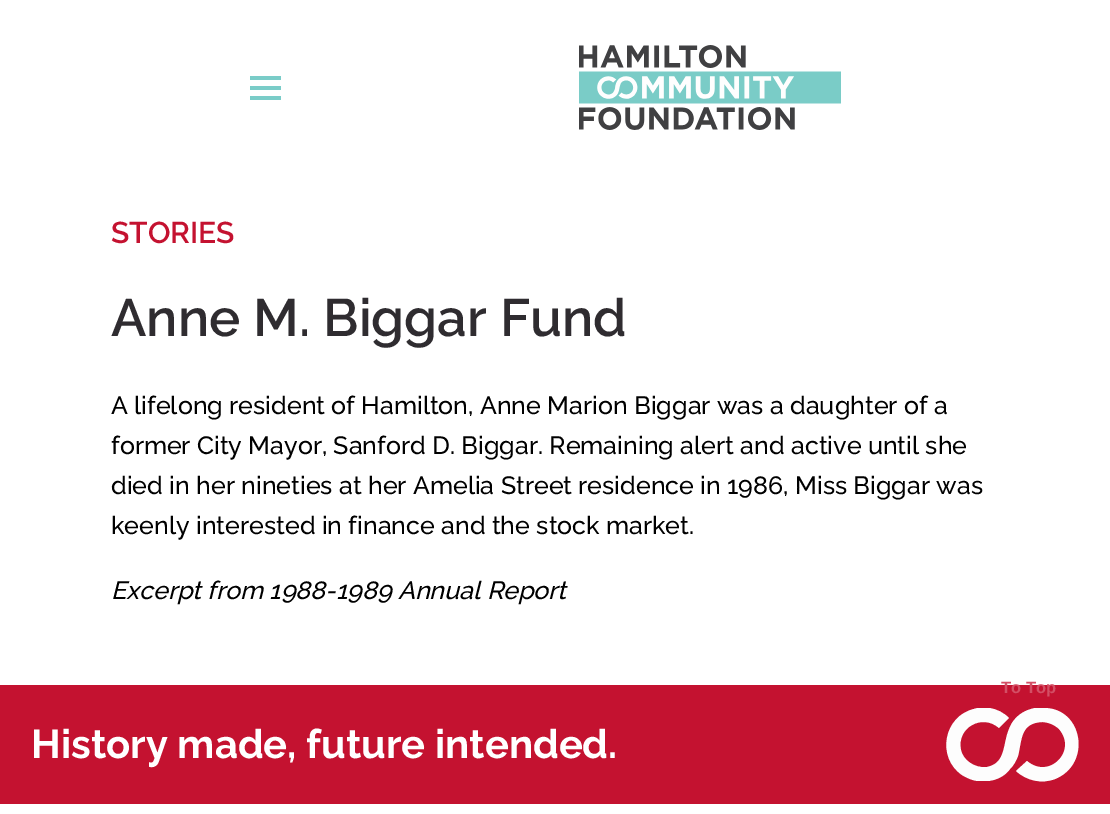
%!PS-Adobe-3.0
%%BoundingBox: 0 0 1110 814
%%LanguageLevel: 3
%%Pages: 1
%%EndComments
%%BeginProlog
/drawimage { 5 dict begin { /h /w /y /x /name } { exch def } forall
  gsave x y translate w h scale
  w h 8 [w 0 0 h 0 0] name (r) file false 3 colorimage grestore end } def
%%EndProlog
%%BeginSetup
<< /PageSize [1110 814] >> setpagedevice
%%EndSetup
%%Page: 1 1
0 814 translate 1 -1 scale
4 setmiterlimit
1 setgray
0 0 1110 814 rectfill
0.478 0.8 0.784 setrgbcolor
250 76 31 4 rectfill
250 86 31 4 rectfill
250 96 31 4 rectfill
(images/1.raw) 579 45 262 85 drawimage
0.769 0.071 0.188 setrgbcolor
0 685 1110 119 rectfill
gsave
946 708 133 75 rectclip
0.992 setgray
newpath 989 708 moveto 997 709 1004 713 1009 718 curveto 999 728 lineto 982 713 956 728 961 750 curveto 962 755 965 759 969 762 curveto 974 766 981 768 987 767 curveto 1002 764 1003 752 1006 739 curveto 1007 734 1009 728 1012 723 curveto 1017 715 1025 710 1035 708 curveto 1044 708 lineto 1083 708 1092 764 1055 779 curveto 1042 784 1027 781 1016 771 curveto 1027 761 lineto 1049 780 1078 751 1059 729 curveto 1055 725 1048 722 1042 722 curveto 1020 723 1022 740 1018 756 curveto 1016 761 1014 765 1010 769 curveto 1005 776 997 780 988 781 curveto 979 781 lineto 973 781 967 778 962 775 curveto 936 757 944 716 974 709 curveto 979 707 984 708 989 708 curveto closepath fill
grestore
/Raleway-SemiBold [30 0 0 -30 0 0] selectfont
111 243 moveto (STORIES) show
/Raleway-SemiBold [52.5 0 0 -52.5 0 0] selectfont
0.184 0.173 0.188 setrgbcolor
111 336 moveto (Anne M. Biggar Fund) show
/Raleway-Medium [25 0 0 -25 0 0] selectfont
0 setgray
111 414 moveto (A lifelong resident of Hamilton, Anne Marion Biggar was a daughter of a) show
111 454 moveto (former City Mayor, Sanford D. Biggar. Remaining alert and active until she) show
111 494 moveto (died in her nineties at her Amelia Street residence in 1986, Miss Biggar was) show
111 534 moveto (keenly interested in finance and the stock market.) show
/Raleway-MediumItalic [25 0 0 -25 0 0] selectfont
111 599 moveto (Excerpt from 1988-1989 Annual Report) show
/LiberationSans-Bold [16.5 0 0 -16.5 0 0] selectfont
0.827 0.31 0.396 setrgbcolor
1001 693 moveto (To Top) show
/Raleway-Bold [40 0 0 -40 0 0] selectfont
1 setgray
31 758 moveto (History made, future intended.) show
showpage
%%EOF
